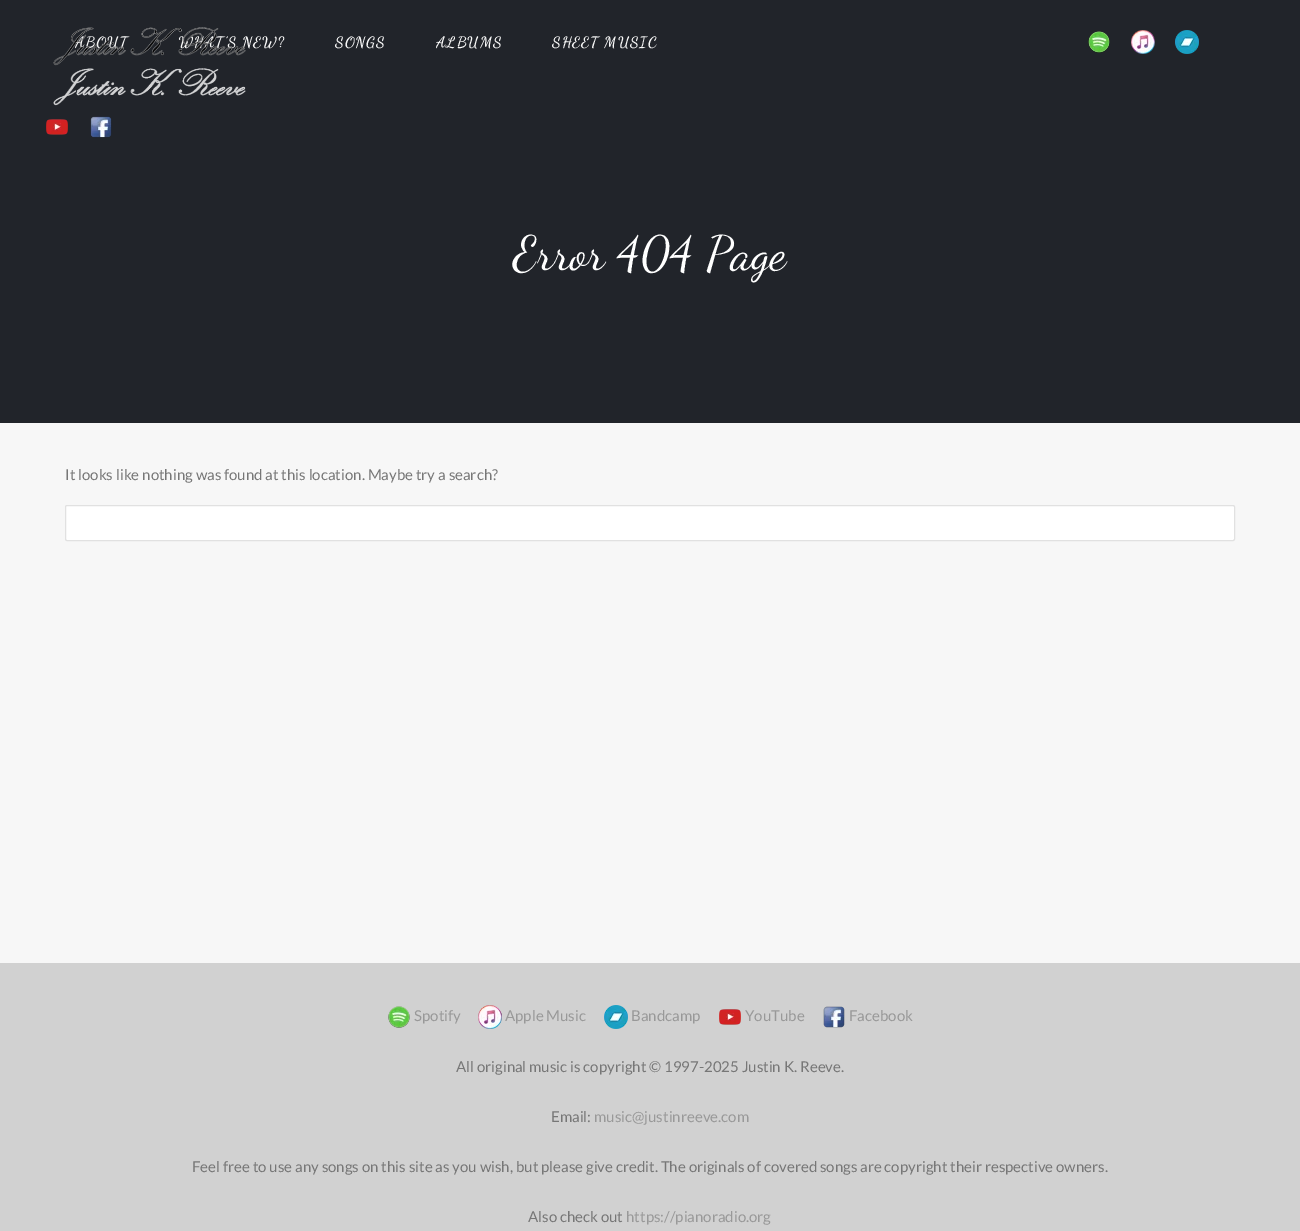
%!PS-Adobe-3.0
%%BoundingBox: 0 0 1300 1231
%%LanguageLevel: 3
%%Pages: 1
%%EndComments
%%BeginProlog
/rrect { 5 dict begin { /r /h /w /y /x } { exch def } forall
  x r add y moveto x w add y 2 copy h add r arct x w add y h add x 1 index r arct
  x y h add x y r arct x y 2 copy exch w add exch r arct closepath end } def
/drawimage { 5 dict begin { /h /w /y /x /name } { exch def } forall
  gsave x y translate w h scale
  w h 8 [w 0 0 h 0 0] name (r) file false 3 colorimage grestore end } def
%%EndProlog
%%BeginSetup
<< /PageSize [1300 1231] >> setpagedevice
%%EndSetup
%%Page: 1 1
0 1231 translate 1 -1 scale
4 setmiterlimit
0.969 setgray
0 0 1300 1231 rectfill
0.129 0.141 0.165 setrgbcolor
0 0 1300 423 rectfill
(images/2.raw) 53 68 193 38 drawimage
(images/3.raw) 1088 31 22 22 drawimage
(images/4.raw) 1131 30 24 24 drawimage
(images/5.raw) 1175 30 24 24 drawimage
(images/6.raw) 46 119 22 16 drawimage
(images/7.raw) 90 116 22 22 drawimage
1 setgray
65.5 505.5 1169 35 1.5 rrect gsave fill grestore
0.882 setgray
stroke
0.82 setgray
0 963 1300 268 rectfill
(images/8.raw) 388 1006 22 22 drawimage
(images/9.raw) 478 1005 24 24 drawimage
(images/10.raw) 604 1005 24 24 drawimage
(images/11.raw) 719 1009 22 16 drawimage
(images/12.raw) 823 1006 22 22 drawimage
/DancingScript-Bold [15 0 0 -15 0 0] selectfont
0.973 setgray
75 47 moveto 1 0 (ABOUT) ashow
178 47 moveto 1 0 (WHAT’S NEW?) ashow
(images/1.raw) 53 27 193 39 drawimage
335 47 moveto 1 0 (SONGS) ashow
436 47 moveto 1 0 (ALBUMS) ashow
552 47 moveto 1 0 (SHEET MUSIC) ashow
/DancingScript-Regular [48 0 0 -48 0 0] selectfont
1 setgray
513 269 moveto (Error 404 Page) show
/Lato-Regular [15 0 0 -15 0 0] selectfont
0.467 setgray
65 480 moveto (It looks like nothing was found at this location. Maybe try a search?) show
0.6 setgray
414 1021 moveto (Spotify) show
505 1021 moveto (Apple Music) show
631 1021 moveto (Bandcamp) show
745 1021 moveto (YouTube) show
849 1021 moveto (Facebook) show
0.467 setgray
456 1072 moveto (All original music is copyright © 1997-2025 Justin K. Reeve.) show
551 1122 moveto (Email:) show
0.6 setgray
594 1122 moveto (music@justinreeve.com) show
0.467 setgray
192 1172 moveto (Feel free to use any songs on this site as you wish, but please give credit. The originals of covered songs are copyright their respective owners.) show
528 1222 moveto (Also check out) show
0.6 setgray
626 1222 moveto (https://pianoradio.org) show
showpage
%%EOF
